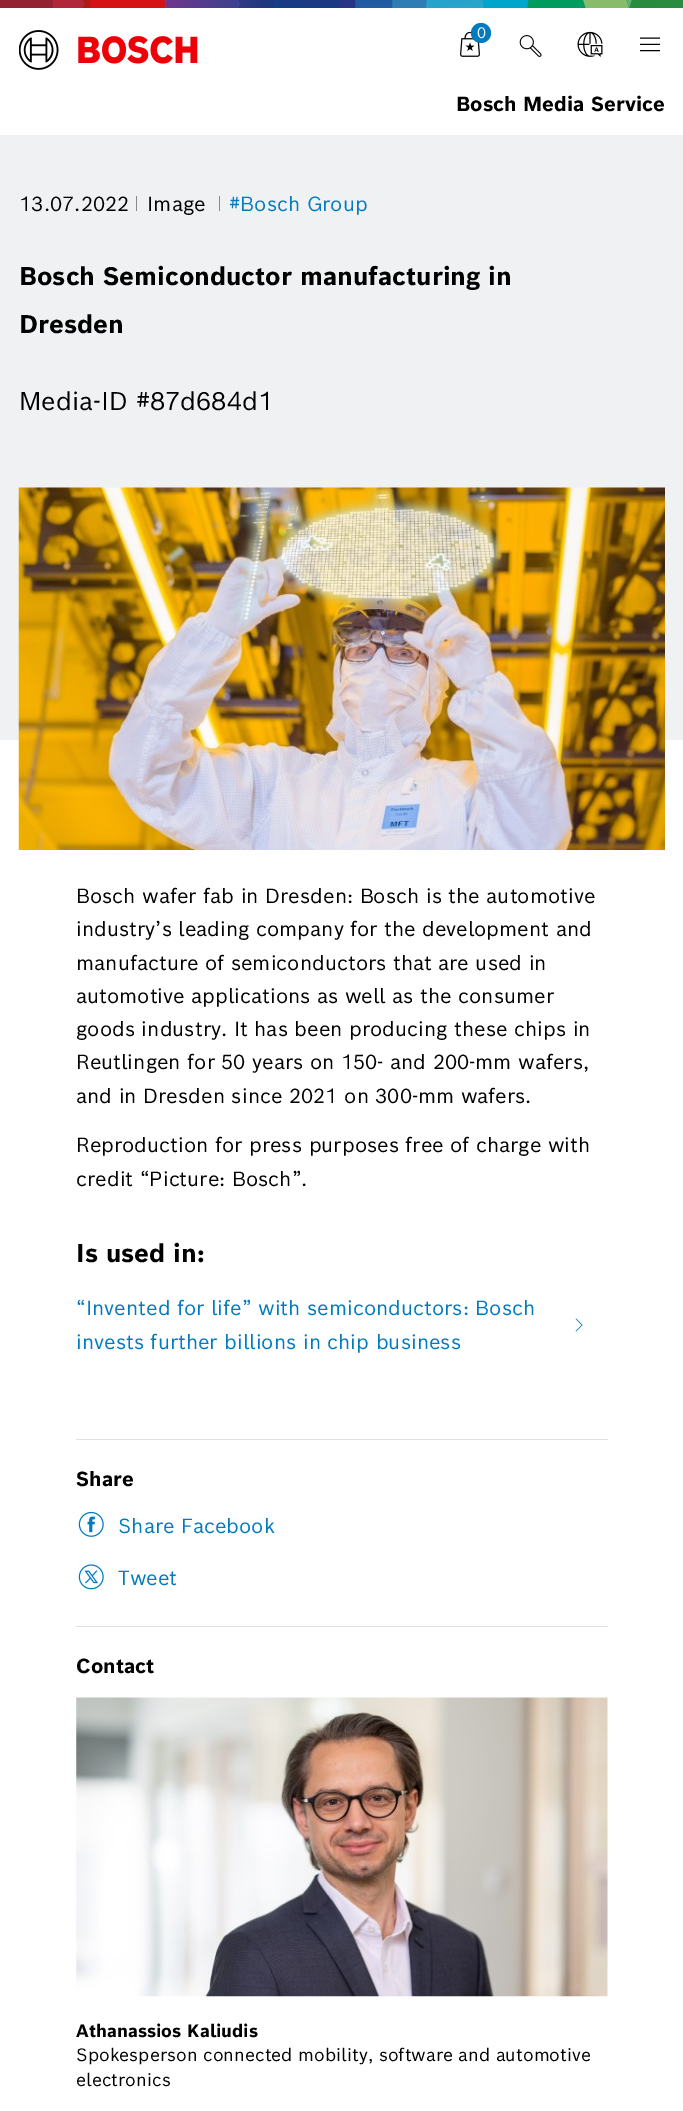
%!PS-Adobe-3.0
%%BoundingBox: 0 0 683 2111
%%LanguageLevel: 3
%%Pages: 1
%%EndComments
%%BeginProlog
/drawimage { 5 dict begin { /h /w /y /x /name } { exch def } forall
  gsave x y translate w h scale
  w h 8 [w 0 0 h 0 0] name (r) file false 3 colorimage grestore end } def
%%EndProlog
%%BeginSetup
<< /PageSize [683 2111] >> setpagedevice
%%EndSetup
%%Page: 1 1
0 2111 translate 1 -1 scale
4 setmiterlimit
1 setgray
0 0 683 2111 rectfill
(images/1.raw) 26 0 632 8 drawimage
0.58 0.137 0.192 setrgbcolor
0 0 26 8 rectfill
0.165 0.549 0.251 setrgbcolor
658 0 25 8 rectfill
(images/2.raw) 19 30 179 40 drawimage
(images/3.raw) 460 31 20 26 drawimage
0 0.482 0.753 setrgbcolor
newpath 481 33 10 0 360 arc closepath fill
(images/4.raw) 519 35 23 22 drawimage
(images/5.raw) 577 31 26 26 drawimage
(images/6.raw) 640 37 20 15 drawimage
0.937 0.945 0.949 setrgbcolor
0 135 683 605 rectfill
0.529 0.533 0.541 setrgbcolor
136 196 1 15 rectfill
219 196 1 15 rectfill
(images/7.raw) 18 487 647 363 drawimage
(images/8.raw) 575 1318 8 14 drawimage
0.882 0.882 0.886 setrgbcolor
76 1439 532 1 rectfill
(images/9.raw) 78 1511 26 26 drawimage
(images/10.raw) 78 1564 26 26 drawimage
76 1626 532 1 rectfill
(images/11.raw) 76 1697 532 300 drawimage
/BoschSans-Regular [15 0 0 -15 0 0] selectfont
1 setgray
477 38 moveto (0) show
/BoschSans-Bold [20 0 0 -20 0 0] selectfont
0 setgray
456 111 moveto (Bosch Media Service) show
/BoschSans-Regular [20 0 0 -20 0 0] selectfont
19 211 moveto (13.07.2022) show
147 211 moveto (Image) show
0 0.482 0.753 setrgbcolor
229 211 moveto (#Bosch Group) show
/BoschSans-Bold [25 0 0 -25 0 0] selectfont
0 setgray
19 285 moveto (Bosch Semiconductor manufacturing in) show
19 333 moveto (Dresden) show
/BoschSans-Regular [25 0 0 -25 0 0] selectfont
19 410 moveto (Media-ID #87d684d1) show
/BoschSans-Regular [20 0 0 -20 0 0] selectfont
76 903 moveto (Bosch wafer fab in Dresden: Bosch is the automotive) show
76 936 moveto (industry’s leading company for the development and) show
76 970 moveto (manufacture of semiconductors that are used in) show
76 1003 moveto (automotive applications as well as the consumer) show
76 1036 moveto (goods industry. It has been producing these chips in) show
76 1069 moveto (Reutlingen for 50 years on 150- and 200-mm wafers,) show
76 1103 moveto (and in Dresden since 2021 on 300-mm wafers.) show
76 1152 moveto (Reproduction for press purposes free of charge with) show
76 1186 moveto (credit “Picture: Bosch”.) show
/BoschSans-Bold [25 0 0 -25 0 0] selectfont
76 1262 moveto (Is used in:) show
/BoschSans-Regular [20 0 0 -20 0 0] selectfont
0 0.482 0.753 setrgbcolor
76 1315 moveto (“Invented for life” with semiconductors: Bosch) show
76 1349 moveto (invests further billions in chip business) show
/BoschSans-Bold [20 0 0 -20 0 0] selectfont
0 setgray
76 1486 moveto (Share) show
/BoschSans-Regular [20 0 0 -20 0 0] selectfont
0 0.482 0.753 setrgbcolor
118 1533 moveto (Share Facebook) show
118 1585 moveto (Tweet) show
/BoschSans-Bold [20 0 0 -20 0 0] selectfont
0 setgray
76 1673 moveto (Contact) show
/BoschSans-Bold [17.5 0 0 -17.5 0 0] selectfont
76 2037 moveto (Athanassios Kaliudis) show
/BoschSans-Regular [17.5 0 0 -17.5 0 0] selectfont
76 2061 moveto (Spokesperson connected mobility, software and automotive) show
76 2086 moveto (electronics) show
showpage
%%EOF
